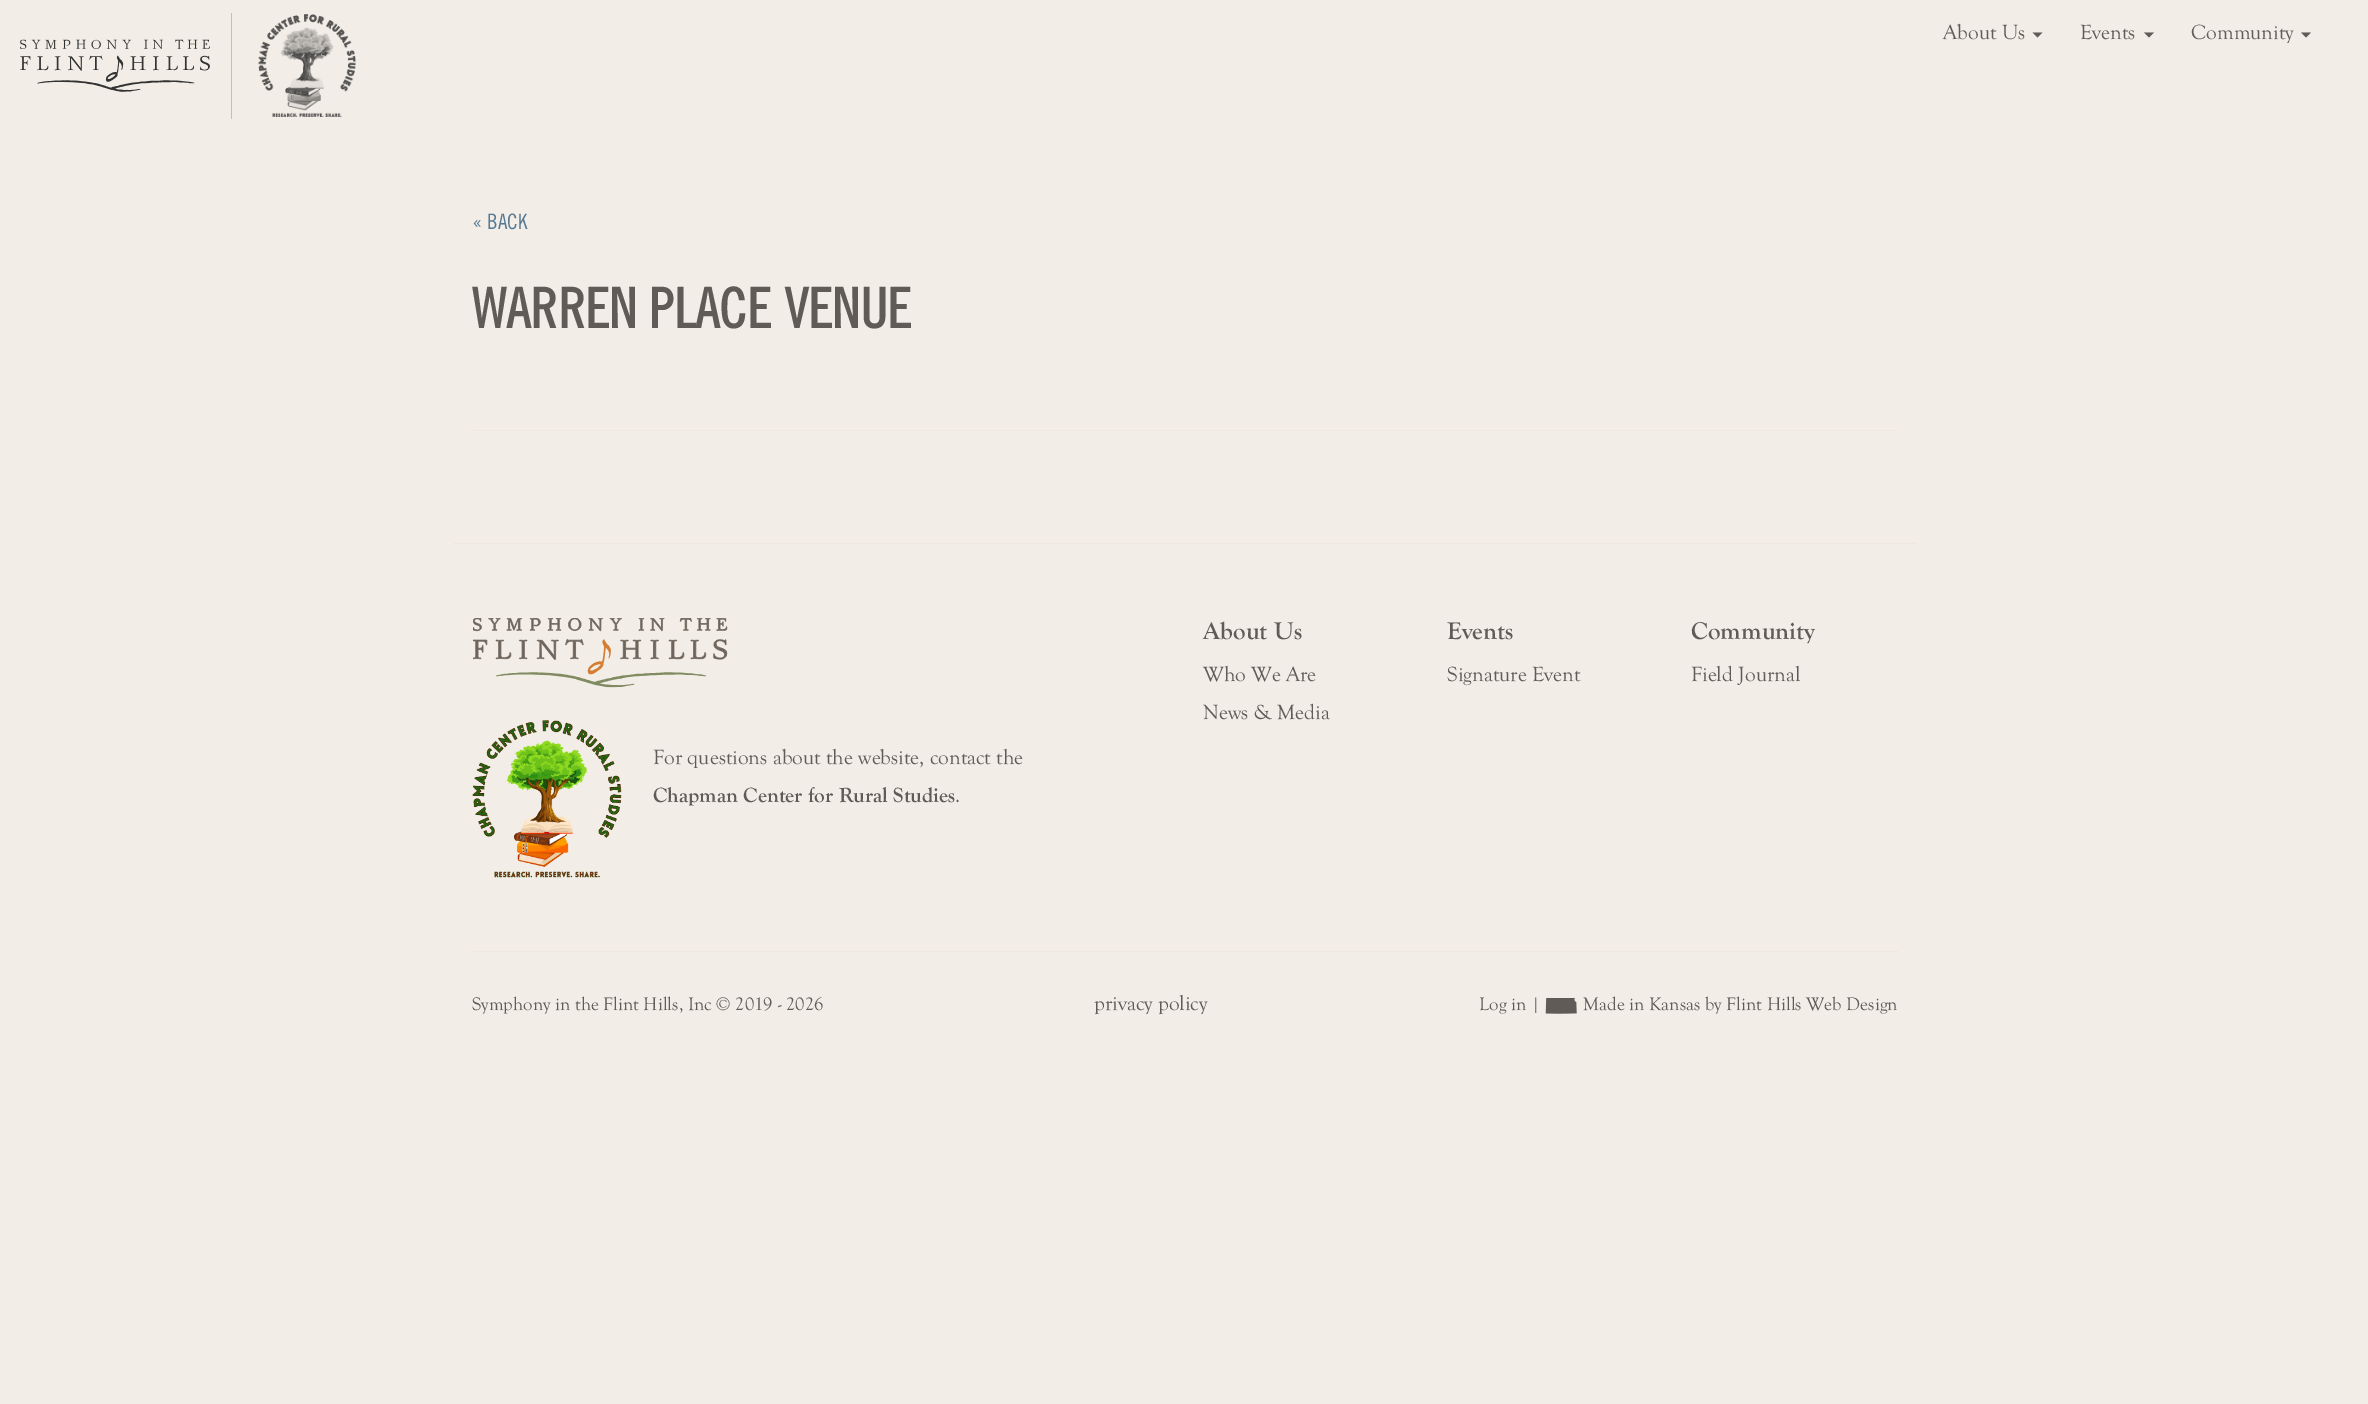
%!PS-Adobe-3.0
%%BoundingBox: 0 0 2368 1404
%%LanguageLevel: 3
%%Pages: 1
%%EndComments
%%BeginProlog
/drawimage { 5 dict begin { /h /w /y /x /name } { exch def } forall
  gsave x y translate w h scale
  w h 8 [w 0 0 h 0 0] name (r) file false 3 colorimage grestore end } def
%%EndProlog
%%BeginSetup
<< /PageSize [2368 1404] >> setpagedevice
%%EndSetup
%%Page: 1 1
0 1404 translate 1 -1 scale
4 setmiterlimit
0.949 0.929 0.906 setrgbcolor
0 0 2368 1404 rectfill
(images/1.raw) 20 39 190 53 drawimage
0.761 0.749 0.729 setrgbcolor
231 13 1 106 rectfill
(images/2.raw) 258 14 98 103 drawimage
0.376 0.357 0.337 setrgbcolor
newpath 2032.5 32.5 moveto 2042.5 32.5 lineto 2037.5 37.5 lineto closepath fill
newpath 2144 32.5 moveto 2154 32.5 lineto 2149 37.5 lineto closepath fill
newpath 2301 32.5 moveto 2311 32.5 lineto 2306 37.5 lineto closepath fill
0.937 0.898 0.882 setrgbcolor
473 430 1425 1 rectfill
454 543 1462 1 rectfill
(images/3.raw) 473 618 255 70 drawimage
(images/4.raw) 472 720 150 158 drawimage
473 951 1425 1 rectfill
(images/5.raw) 1545 998 32 16 drawimage
/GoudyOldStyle-Regular [21.25 0 0 -21.25 0 0] selectfont
0.376 0.357 0.337 setrgbcolor
1943 39 moveto (About Us) show
2080 39 moveto (Events) show
2191 39 moveto (Community) show
/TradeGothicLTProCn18-Regular [21.25 0 0 -21.25 0 0] selectfont
0.337 0.471 0.565 setrgbcolor
472 229 moveto (« BACK) show
/TradeGothicLTProCn18-Bold [55 0 0 -55 0 0] selectfont
0.376 0.357 0.337 setrgbcolor
472 328 moveto (WARREN PLACE VENUE) show
/GoudyOldStyle-Bold [25 0 0 -25 0 0] selectfont
1203 639 moveto (About Us) show
/GoudyOldStyle-Regular [21.25 0 0 -21.25 0 0] selectfont
1203 681 moveto (Who We Are) show
1203 719 moveto (News & Media) show
/GoudyOldStyle-Bold [25 0 0 -25 0 0] selectfont
1447 639 moveto (Events) show
/GoudyOldStyle-Regular [21.25 0 0 -21.25 0 0] selectfont
1447 681 moveto (Signature Event) show
/GoudyOldStyle-Bold [25 0 0 -25 0 0] selectfont
1691 639 moveto (Community) show
/GoudyOldStyle-Regular [21.25 0 0 -21.25 0 0] selectfont
1691 681 moveto (Field Journal) show
653 764 moveto (For questions about the website, contact the) show
/GoudyOldStyle-Bold [21.25 0 0 -21.25 0 0] selectfont
653 802 moveto (Chapman Center for Rural Studies) show
/GoudyOldStyle-Regular [21.25 0 0 -21.25 0 0] selectfont
955 802 moveto (.) show
/GoudyOldStyle-Regular [18.75 0 0 -18.75 0 0] selectfont
472 1010 moveto (Symphony in the Flint Hills, Inc © 2019 - 2026) show
/GoudyOldStyle-Regular [21.25 0 0 -21.25 0 0] selectfont
1094 1010 moveto (privacy policy) show
/GoudyOldStyle-Regular [18.75 0 0 -18.75 0 0] selectfont
1479 1010 moveto (Log in |) show
1583 1010 moveto (Made in Kansas by Flint Hills Web Design) show
showpage
%%EOF
